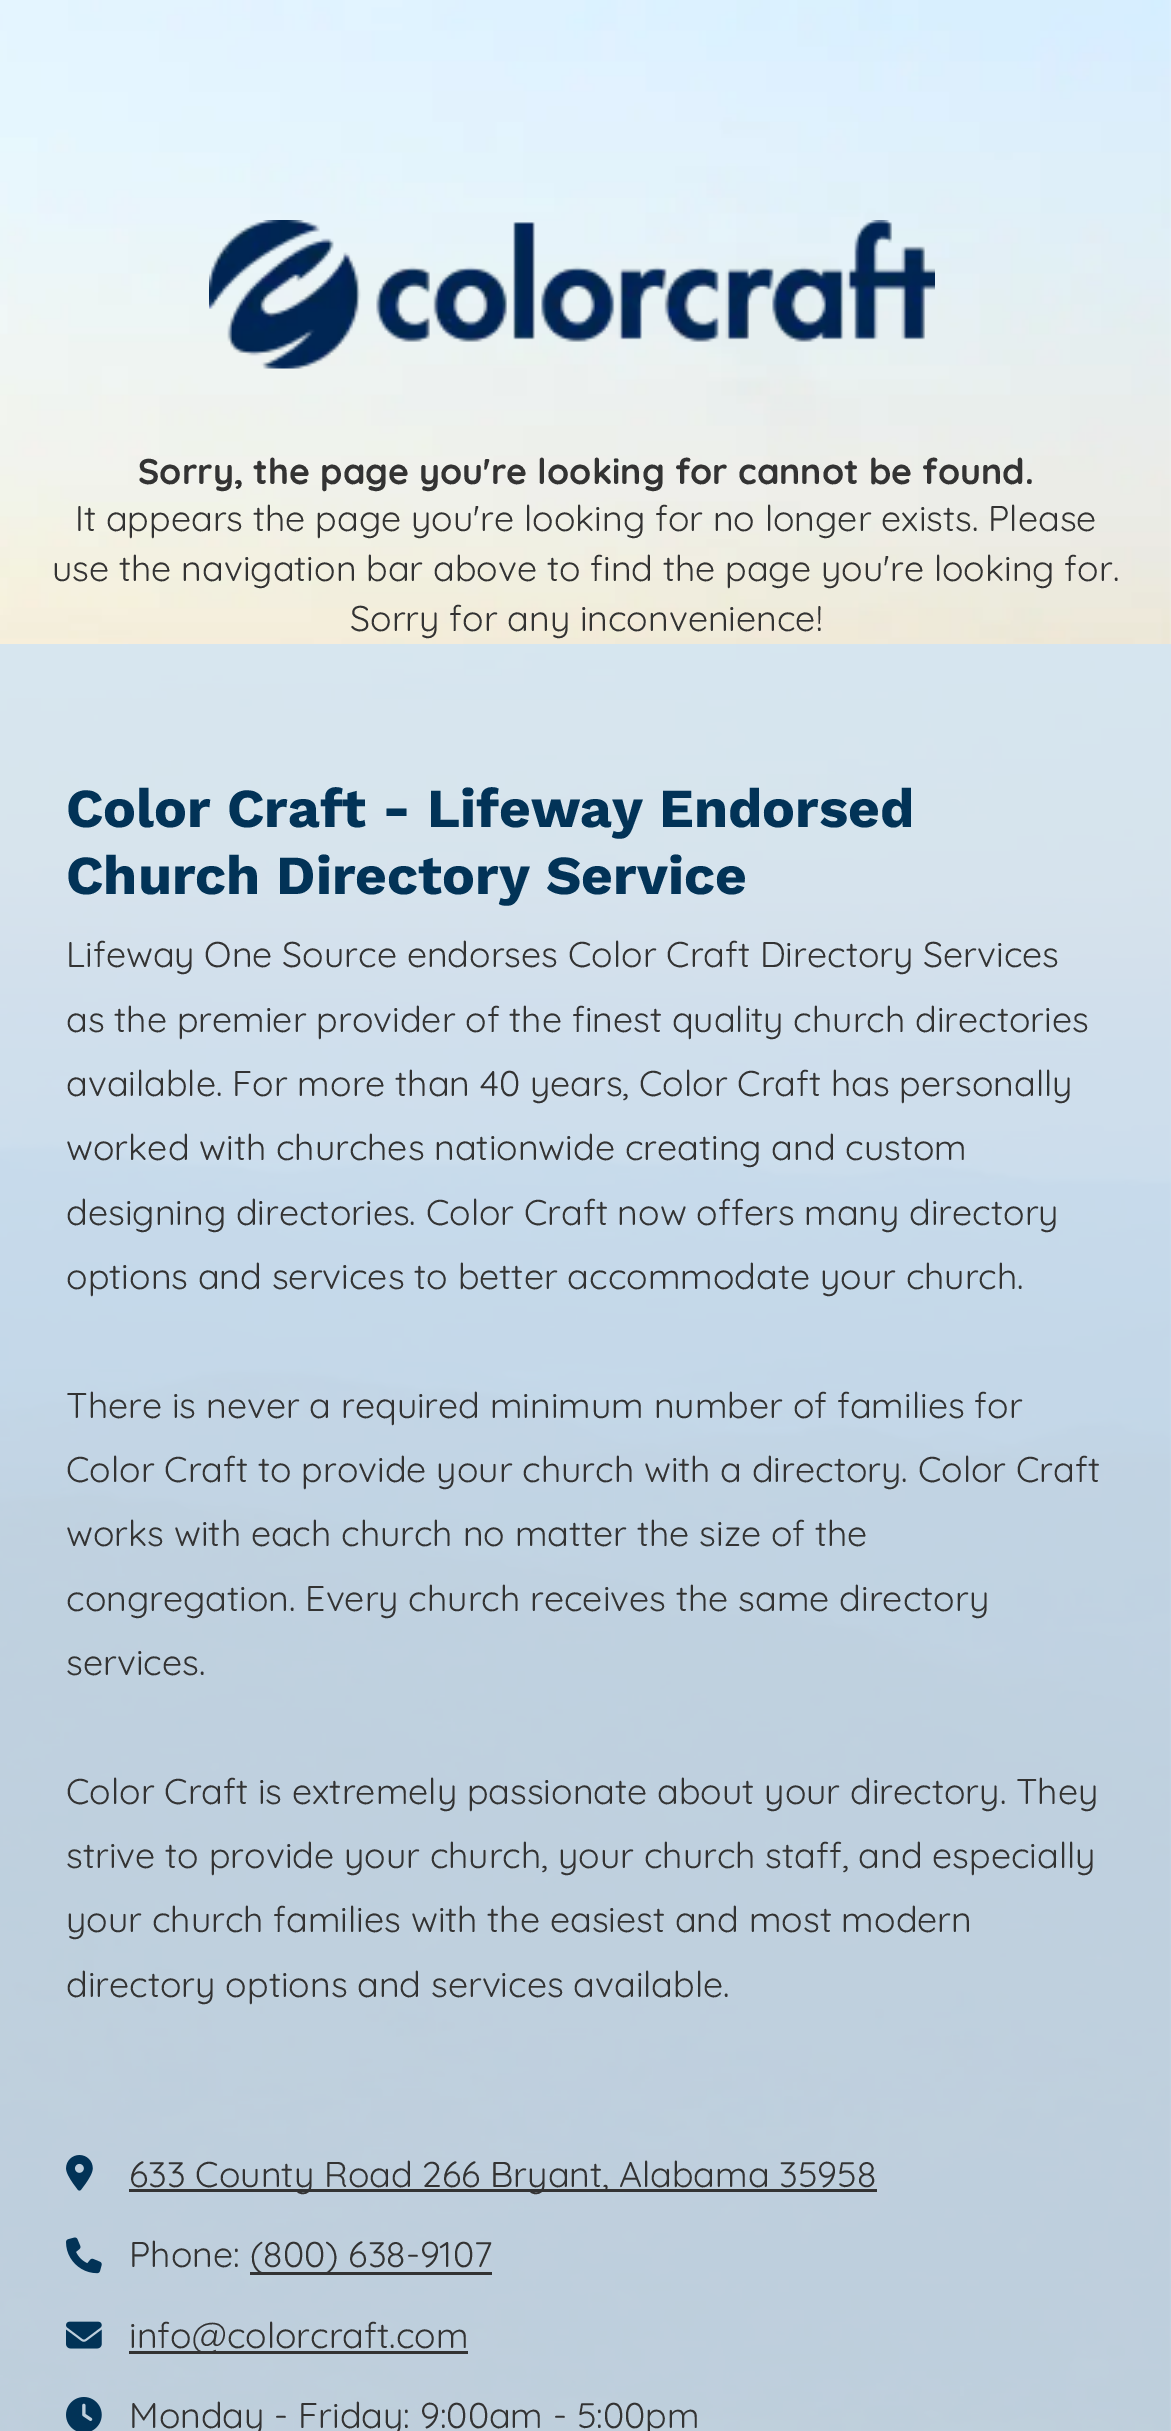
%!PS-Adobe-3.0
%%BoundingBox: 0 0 1171 2431
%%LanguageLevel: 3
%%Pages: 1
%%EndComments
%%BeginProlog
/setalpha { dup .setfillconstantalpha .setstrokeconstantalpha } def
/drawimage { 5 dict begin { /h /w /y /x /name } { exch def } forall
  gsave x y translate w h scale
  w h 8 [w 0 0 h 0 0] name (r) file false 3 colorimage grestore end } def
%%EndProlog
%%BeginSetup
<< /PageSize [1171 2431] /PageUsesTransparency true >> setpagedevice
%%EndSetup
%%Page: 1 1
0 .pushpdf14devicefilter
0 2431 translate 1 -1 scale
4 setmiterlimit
1 setgray
0 0 1171 2431 rectfill
(images/1.raw) 0 0 1171 2431 drawimage
(images/2.raw) 209 220 726 149 drawimage
0.89 setalpha
0.827 0.898 0.949 setrgbcolor
0 644 1171 1787 rectfill
1 setalpha
(images/3.raw) 66 2155 27 36 drawimage
0.2 setgray
129 2189 748 3 rectfill
(images/4.raw) 66 2237 36 37 drawimage
250 2272 242 3 rectfill
(images/5.raw) 66 2321 36 28 drawimage
129 2351 339 3 rectfill
(images/6.raw) 66 2397 36 34 drawimage
/Quicksand-Bold [35.75 0 0 -35.75 0 0] selectfont
138 484 moveto (Sorry, the page you're looking for cannot be found.) show
/Quicksand-Regular [35.75 0 0 -35.75 0 0] selectfont
75 531 moveto (It appears the page you're looking for no longer exists. Please) show
52 581 moveto (use the navigation bar above to find the page you're looking for.) show
350 631 moveto (Sorry for any inconvenience!) show
/WorkSans-Bold [55 0 0 -55 0 0] selectfont
0.008 0.2 0.341 setrgbcolor
66 827 moveto (Color Craft - Lifeway Endorsed) show
66 894 moveto (Church Directory Service) show
/Quicksand-Regular [35.75 0 0 -35.75 0 0] selectfont
0.2 setgray
66 967 moveto (Lifeway One Source endorses Color Craft Directory Services) show
66 1032 moveto (as the premier provider of the finest quality church directories) show
66 1096 moveto (available. For more than 40 years, Color Craft has personally) show
66 1160 moveto (worked with churches nationwide creating and custom) show
66 1225 moveto (designing directories. Color Craft now offers many directory) show
66 1289 moveto (options and services to better accommodate your church.) show
66 1418 moveto (There is never a required minimum number of families for) show
66 1482 moveto (Color Craft to provide your church with a directory. Color Craft) show
66 1546 moveto (works with each church no matter the size of the) show
66 1611 moveto (congregation. Every church receives the same directory) show
66 1675 moveto (services.) show
66 1804 moveto (Color Craft is extremely passionate about your directory. They) show
66 1868 moveto (strive to provide your church, your church staff, and especially) show
66 1932 moveto (your church families with the easiest and most modern) show
66 1997 moveto (directory options and services available.) show
129 2187 moveto (633 County Road 266 Bryant, Alabama 35958) show
129 2267 moveto (Phone:) show
250 2267 moveto (\(800\) 638-9107) show
129 2348 moveto (info@colorcraft.com) show
129 2428 moveto (Monday - Friday: 9:00am - 5:00pm) show
.poppdf14devicefilter showpage
%%EOF
